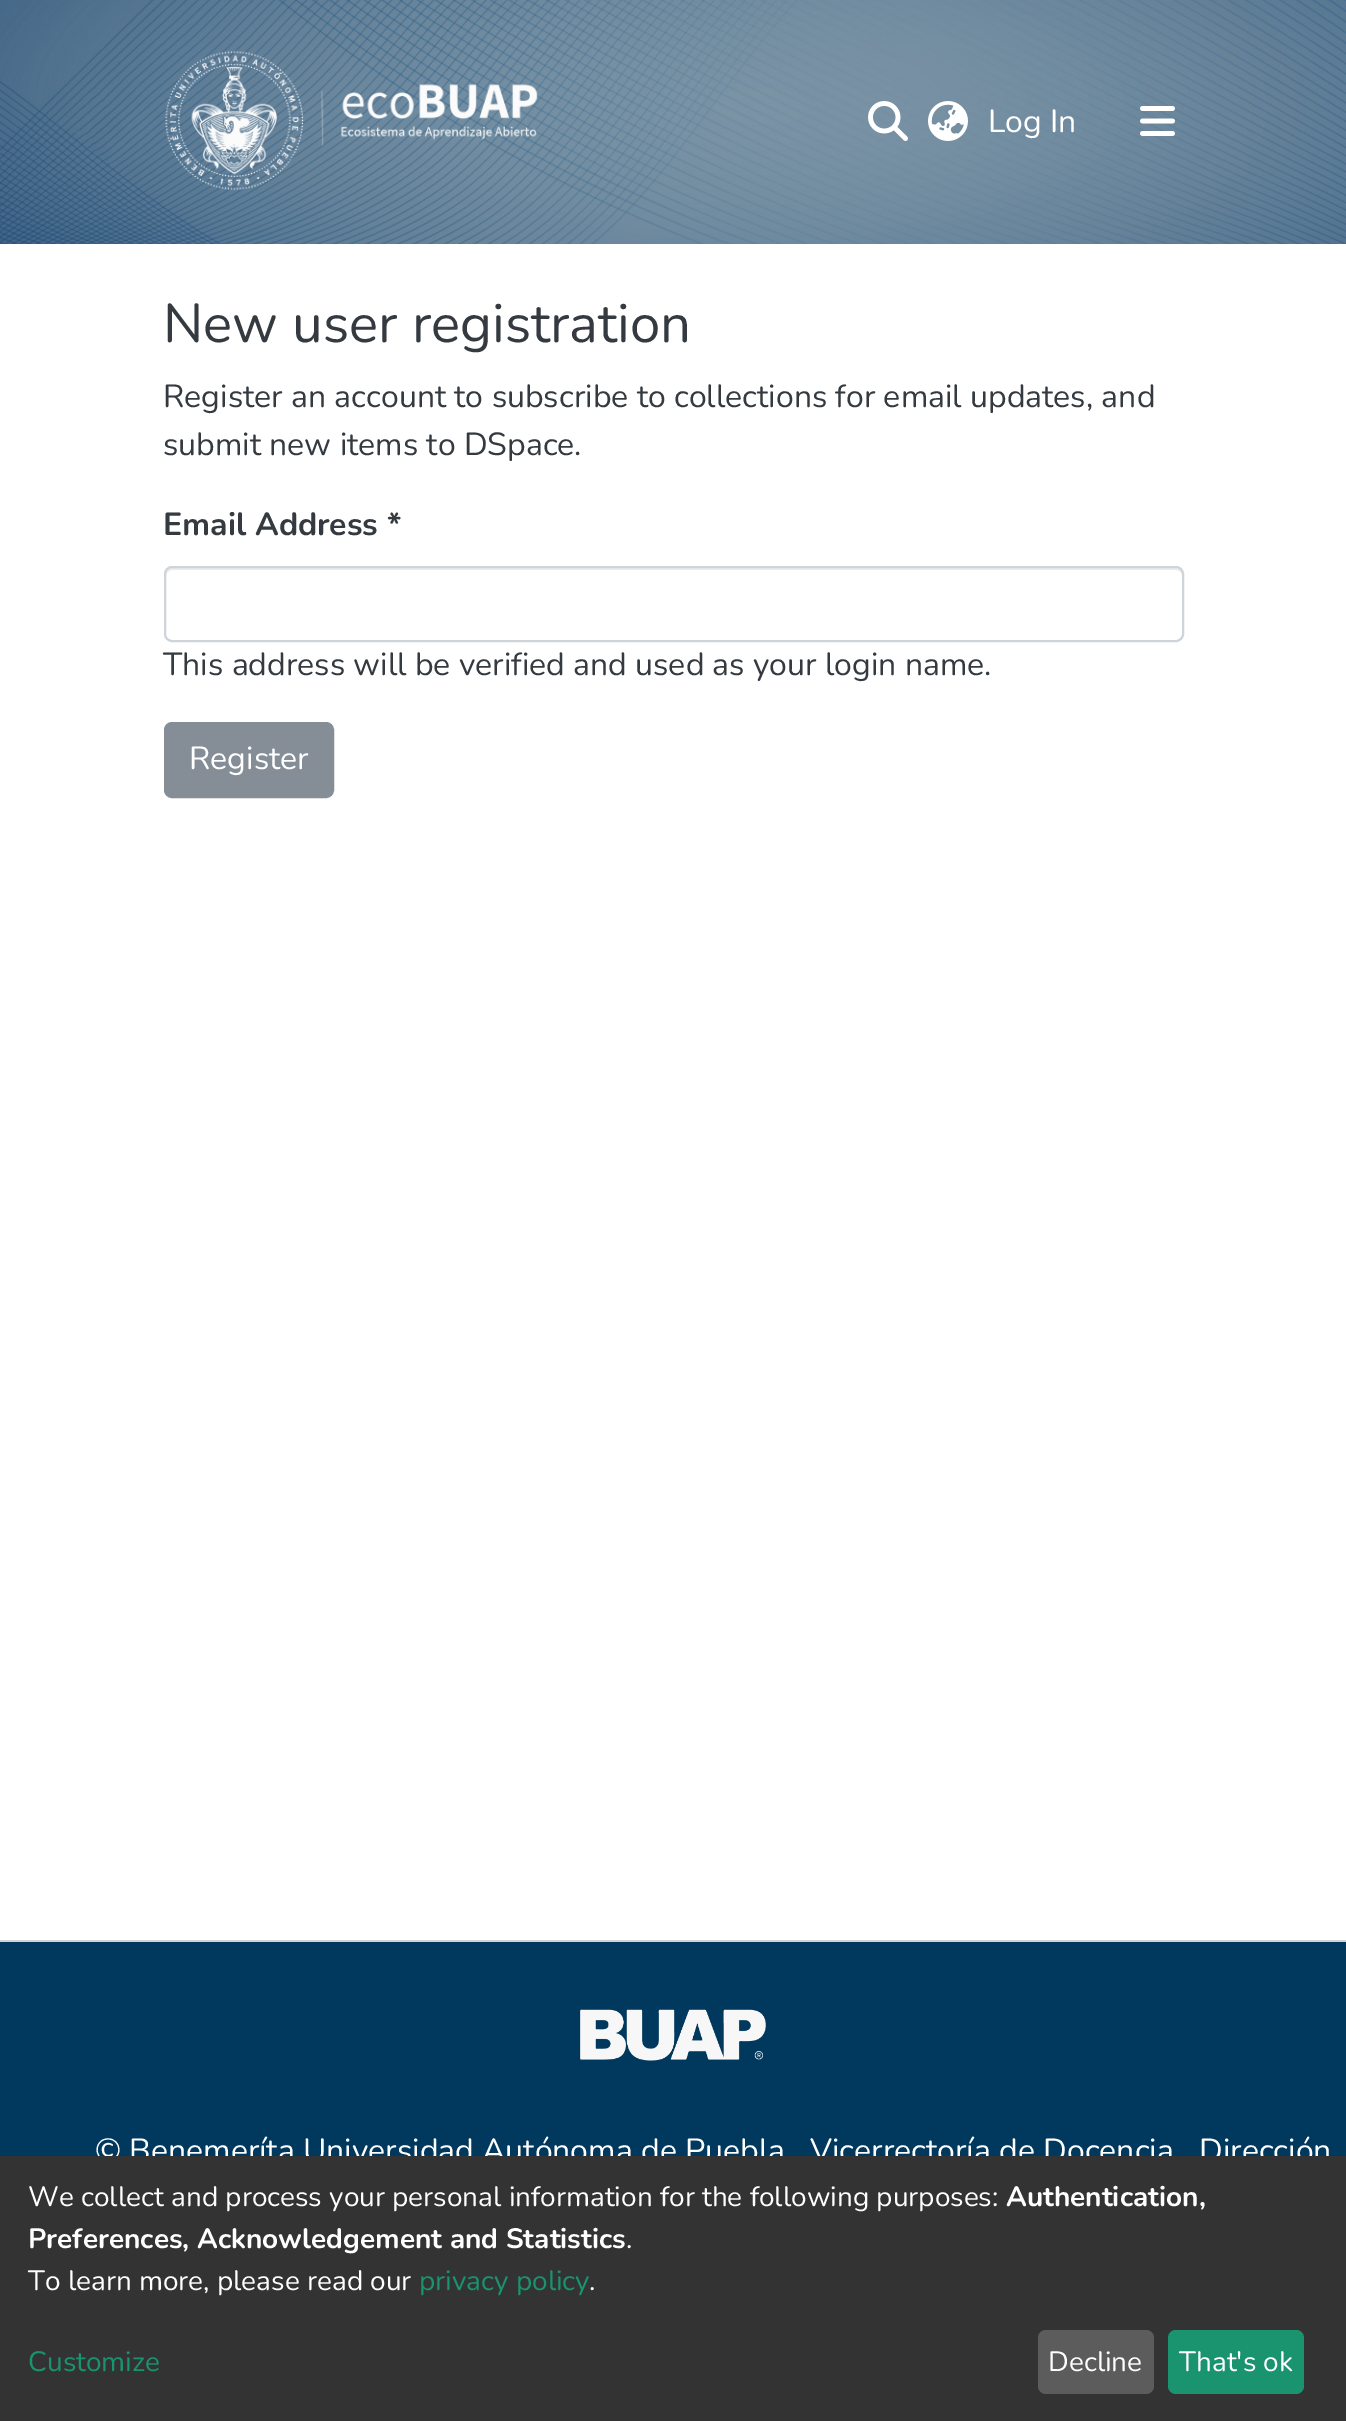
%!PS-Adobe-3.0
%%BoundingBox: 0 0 1346 2421
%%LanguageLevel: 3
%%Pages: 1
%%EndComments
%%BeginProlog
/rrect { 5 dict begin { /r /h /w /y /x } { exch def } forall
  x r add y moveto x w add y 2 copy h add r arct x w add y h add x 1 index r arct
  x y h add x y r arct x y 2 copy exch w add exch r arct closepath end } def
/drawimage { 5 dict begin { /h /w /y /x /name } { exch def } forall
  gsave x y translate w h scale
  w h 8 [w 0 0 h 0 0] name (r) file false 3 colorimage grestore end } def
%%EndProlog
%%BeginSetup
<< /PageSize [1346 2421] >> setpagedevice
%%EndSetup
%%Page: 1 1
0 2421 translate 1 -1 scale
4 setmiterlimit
1 setgray
0 0 1346 2421 rectfill
(images/1.raw) 0 0 1346 244 drawimage
(images/2.raw) 165 50 373 140 drawimage
(images/3.raw) 868 101 40 40 drawimage
(images/4.raw) 928 101 40 40 drawimage
(images/5.raw) 1140 106 35 30 drawimage
0.925 setgray
newpath 172 570 moveto 1176 570 lineto 1179 570 1182 573 1182 576 curveto 1182 574 lineto 1182 571 1179 568 1176 568 curveto 172 568 lineto 169 568 166 571 166 574 curveto 166 576 lineto 166 573 169 570 172 570 curveto closepath fill
0.808 0.831 0.855 setrgbcolor
2 setlinewidth
165 567 1018 74 7 rrect stroke
0.522 0.557 0.592 setrgbcolor
165 723 168 74 7 rrect gsave fill grestore
stroke
0.808 0.831 0.855 setrgbcolor
0 1940 1346 2 rectfill
0.004 0.224 0.369 setrgbcolor
0 1942 1346 214 rectfill
(images/6.raw) 580 2009 186 52 drawimage
/Nunito-Regular [32 0 0 -32 0 0] selectfont
1 setgray
988 132 moveto (Log In) show
/Nunito-Regular [54.5 0 0 -54.5 0 0] selectfont
0.204 0.227 0.251 setrgbcolor
163 342 moveto (New user registration) show
/Nunito-Regular [32 0 0 -32 0 0] selectfont
163 407 moveto (Register an account to subscribe to collections for email updates, and) show
163 455 moveto (submit new items to DSpace.) show
/Nunito-Bold [32 0 0 -32 0 0] selectfont
163 535 moveto (Email Address *) show
/Nunito-Regular [32 0 0 -32 0 0] selectfont
163 675 moveto (This address will be verified and used as your login name.) show
1 setgray
189 769 moveto (Register) show
95 2161 moveto (© Benemeríta Universidad Autónoma de Puebla) show
810 2161 moveto (Vicerrectoría de Docencia) show
1199 2161 moveto (Dirección) show
0.2 setgray
0 2156 1346 265 rectfill
/Nunito-Regular [28 0 0 -28 0 0] selectfont
1 setgray
28 2206 moveto (We collect and process your personal information for the following purposes:) show
/Nunito-Bold [28 0 0 -28 0 0] selectfont
1006 2206 moveto (Authentication,) show
28 2248 moveto (Preferences, Acknowledgement and Statistics) show
/Nunito-Regular [28 0 0 -28 0 0] selectfont
626 2248 moveto (.) show
28 2290 moveto (To learn more, please read our) show
0.102 0.576 0.435 setrgbcolor
419 2290 moveto (privacy policy) show
1 setgray
589 2290 moveto (.) show
0.102 0.576 0.435 setrgbcolor
28 2371 moveto (Customize) show
0.361 setgray
1038 2330 116 64 8 rrect fill
1 setgray
1048 2371 moveto (Decline) show
0.102 0.576 0.435 setrgbcolor
1168 2330 136 64 8 rrect fill
1 setgray
1179 2371 moveto (That's ok) show
showpage
%%EOF
